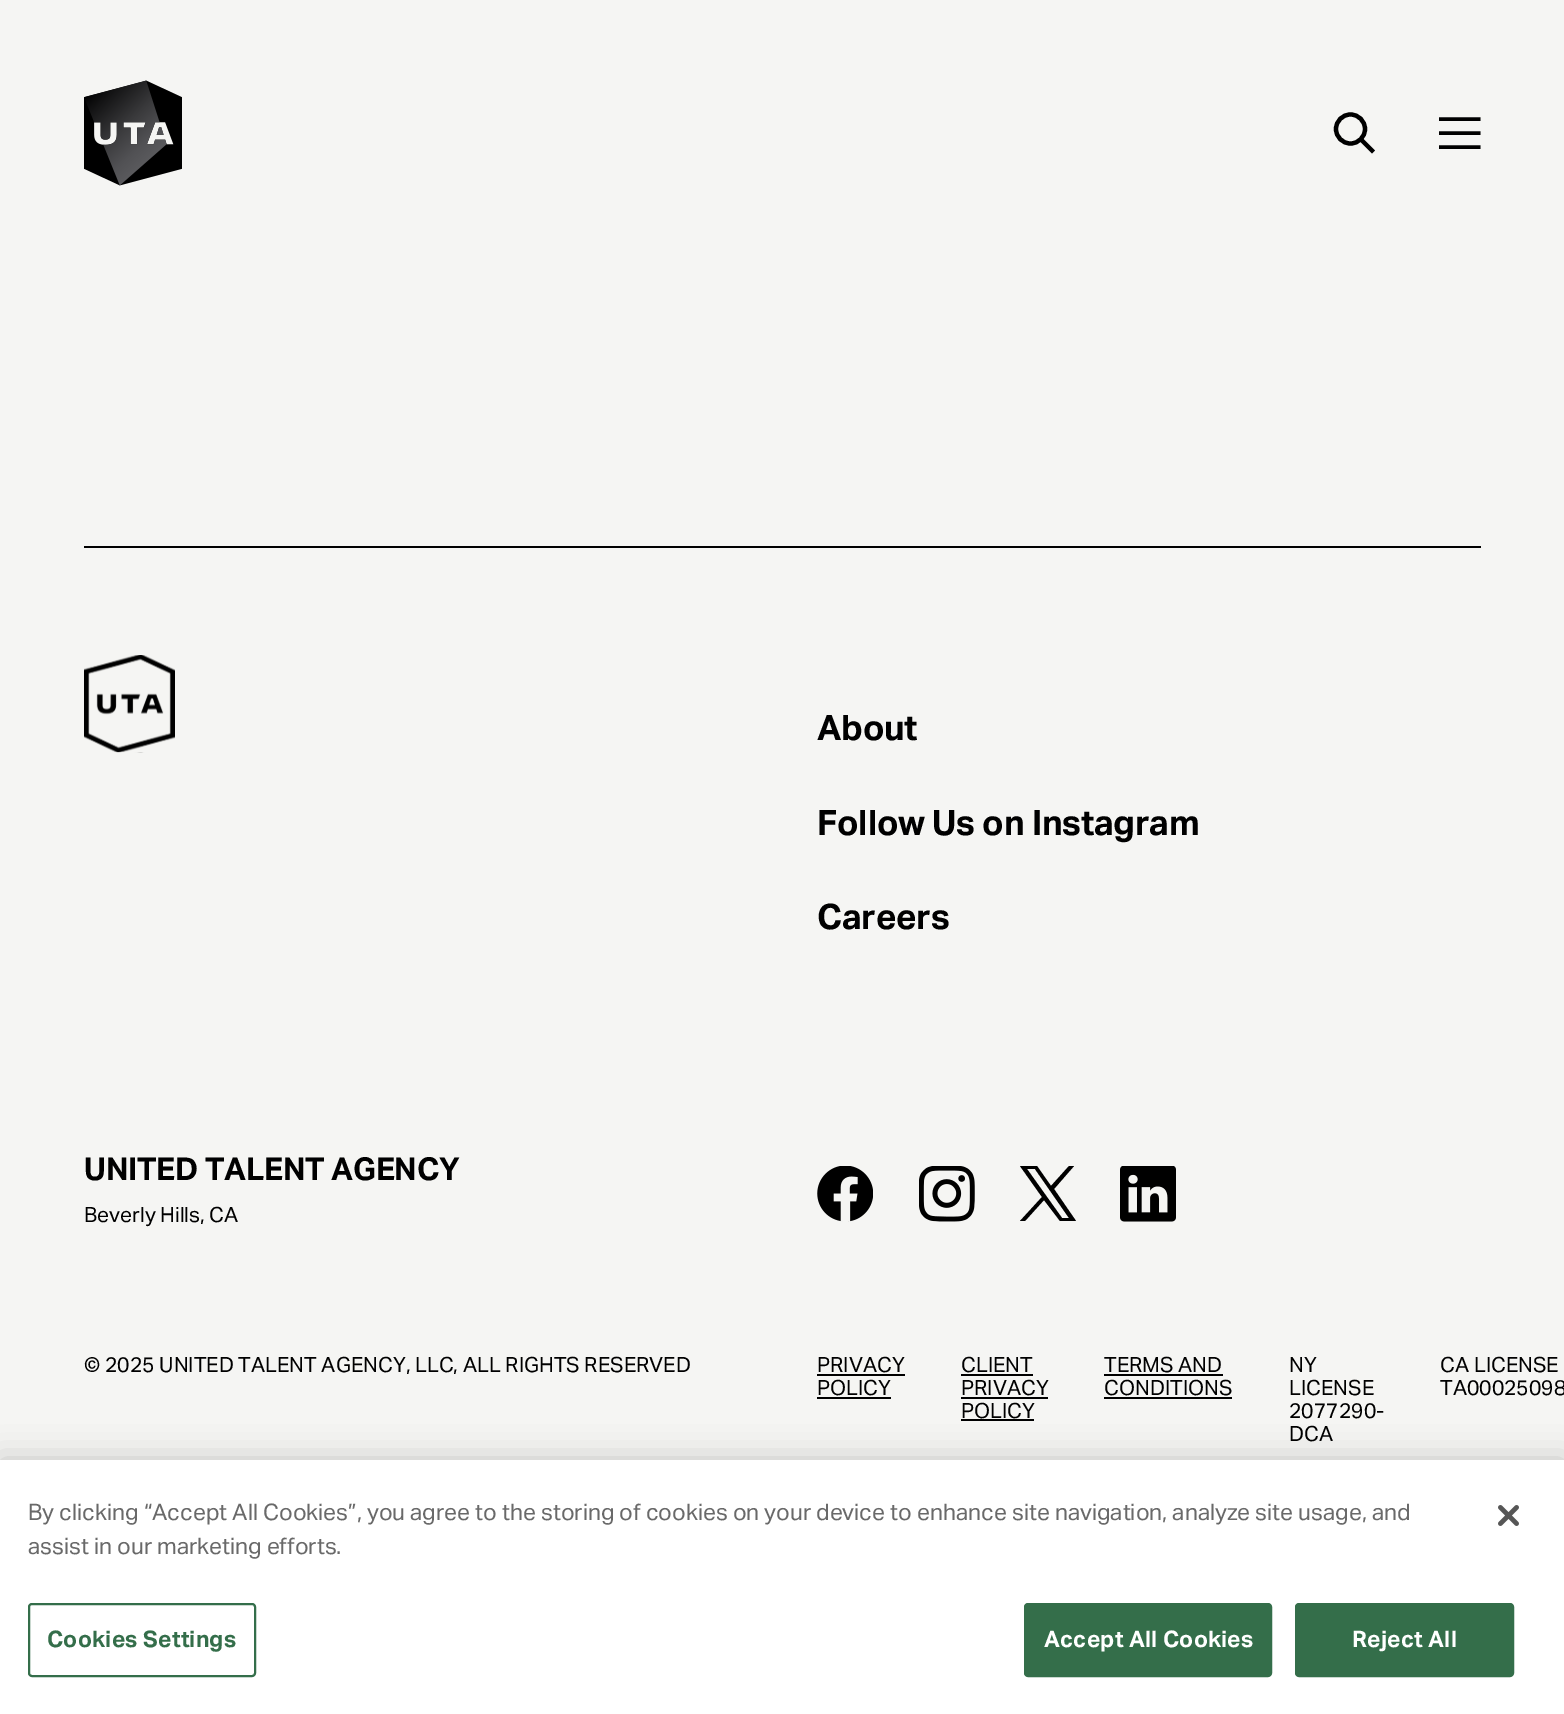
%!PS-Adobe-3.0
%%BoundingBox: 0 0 1564 1714
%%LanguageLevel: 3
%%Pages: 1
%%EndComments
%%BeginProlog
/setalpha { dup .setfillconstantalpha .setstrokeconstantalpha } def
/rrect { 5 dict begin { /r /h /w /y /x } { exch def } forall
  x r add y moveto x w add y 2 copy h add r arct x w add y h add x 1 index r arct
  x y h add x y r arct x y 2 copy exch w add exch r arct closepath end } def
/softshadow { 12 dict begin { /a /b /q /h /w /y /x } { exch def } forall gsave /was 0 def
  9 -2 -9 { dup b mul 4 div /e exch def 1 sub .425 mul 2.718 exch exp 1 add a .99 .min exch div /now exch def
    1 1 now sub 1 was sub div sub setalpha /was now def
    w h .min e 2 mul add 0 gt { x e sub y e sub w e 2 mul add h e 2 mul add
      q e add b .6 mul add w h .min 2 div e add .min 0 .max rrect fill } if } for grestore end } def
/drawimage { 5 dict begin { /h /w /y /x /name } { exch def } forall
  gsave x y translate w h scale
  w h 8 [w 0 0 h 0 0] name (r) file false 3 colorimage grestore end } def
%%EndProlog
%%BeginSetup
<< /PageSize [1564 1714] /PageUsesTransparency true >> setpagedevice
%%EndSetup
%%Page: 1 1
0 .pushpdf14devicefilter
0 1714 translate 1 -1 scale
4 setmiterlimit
0.961 0.961 0.953 setrgbcolor
0 0 1564 1714 rectfill
(images/1.raw) 84 80 98 106 drawimage
0 setgray
4.2 setlinewidth
newpath 1350.5 129 14.5 0 360 arc closepath stroke
newpath 1361 139.5 moveto 1373.5 152 lineto stroke
gsave
1439 112 42 42 rectclip
3.5 setlinewidth
newpath 1438.5 119 moveto 1480.5 119 lineto 1438.5 133 moveto 1480.5 133 lineto 1438.5 147 moveto 1480.5 147 lineto stroke
grestore
84 546 1397 2 rectfill
(images/2.raw) 84 655 91 98 drawimage
(images/3.raw) 817 1166 56 56 drawimage
(images/4.raw) 919 1166 56 56 drawimage
newpath 1054 1189 moveto 1074 1166 lineto 1069 1166 lineto 1051 1186 lineto 1037 1166 lineto 1020 1166 lineto 1042 1197 lineto 1020 1221 lineto 1025 1221 lineto 1044 1200 lineto 1060 1221 lineto 1076 1221 lineto 1027 1169 moveto 1035 1169 lineto 1069 1218 lineto 1062 1218 lineto fill
(images/5.raw) 1120 1166 56 56 drawimage
817 1374 88 2 rectfill
817 1397 74 2 rectfill
961 1374 72 2 rectfill
961 1397 87 2 rectfill
961 1419 73 2 rectfill
1104 1374 119 2 rectfill
1104 1397 128 2 rectfill
0 1460 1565 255 0 16 0.2 softshadow
1 setgray
0 1460 1564 254 rectfill
0.204 0.431 0.29 setrgbcolor
2 setlinewidth
29 1604 226 72 3 rrect stroke
1025 1604 246 72 3 rrect gsave fill grestore
stroke
1296 1604 217 72 3 rrect gsave fill grestore
stroke
(images/6.raw) 1498 1505 21 21 drawimage
/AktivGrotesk-Bold [35 0 0 -35 0 0] selectfont
0 setgray
817 740 moveto -0.25 0 (About) ashow
817 835 moveto -0.25 0 (Follow Us on Instagram) ashow
817 929 moveto -0.25 0 (Careers) ashow
/AktivGrotesk-Bold [31.5 0 0 -31.5 0 0] selectfont
84 1180 moveto -0.25 0 (UNITED TALENT AGENCY) ashow
/AktivGrotesk-Regular [21 0 0 -21 0 0] selectfont
84 1222 moveto (Beverly Hills, CA) show
84 1372 moveto (© 2025 UNITED TALENT AGENCY, LLC, ALL RIGHTS RESERVED) show
817 1372 moveto (PRIVACY) show
817 1395 moveto (POLICY) show
961 1372 moveto (CLIENT) show
961 1395 moveto (PRIVACY) show
961 1418 moveto (POLICY) show
1104 1372 moveto (TERMS AND) show
1104 1395 moveto (CONDITIONS) show
1289 1372 moveto (NY) show
1289 1395 moveto (LICENSE) show
1289 1418 moveto (2077290-) show
1289 1441 moveto (DCA) show
1440 1372 moveto (CA LICENSE) show
1440 1395 moveto (TA00025098) show
/AktivGrotesk-Regular [22.75 0 0 -22.75 0 0] selectfont
0.412 setgray
28 1520 moveto (By clicking “Accept All Cookies”, you agree to the storing of cookies on your device to enhance site navigation, analyze site usage, and) show
28 1554 moveto (assist in our marketing efforts.) show
/AktivGrotesk-Bold [22.75 0 0 -22.75 0 0] selectfont
0.204 0.431 0.29 setrgbcolor
47 1647 moveto 0.25 0 (Cookies Settings) ashow
1 setgray
1044 1647 moveto 0.25 0 (Accept All Cookies) ashow
1352 1647 moveto 0.25 0 (Reject All) ashow
.poppdf14devicefilter showpage
%%EOF
